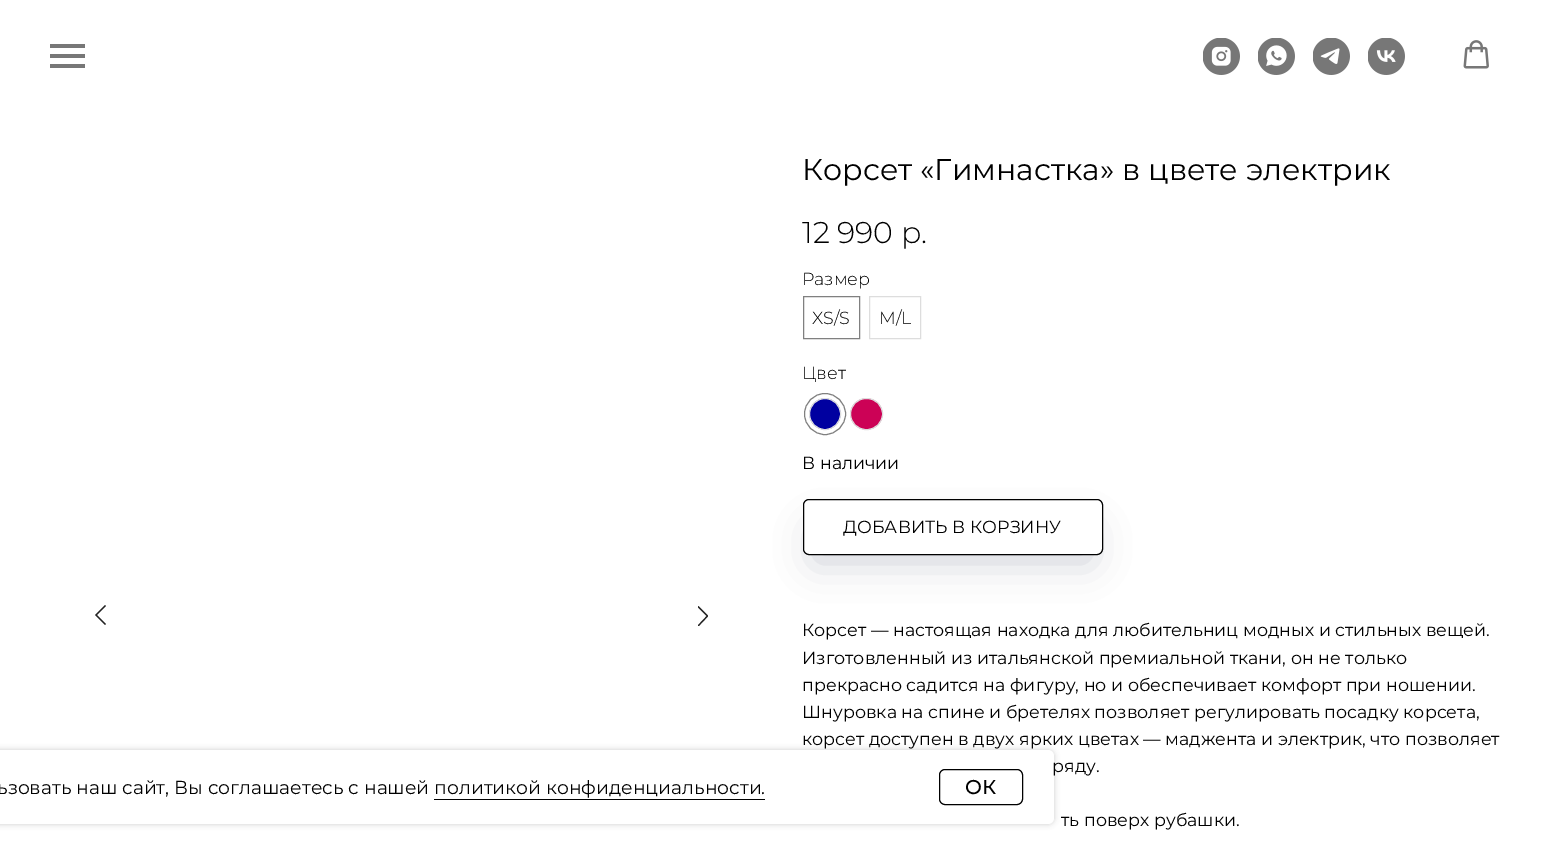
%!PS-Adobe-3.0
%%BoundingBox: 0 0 1553 861
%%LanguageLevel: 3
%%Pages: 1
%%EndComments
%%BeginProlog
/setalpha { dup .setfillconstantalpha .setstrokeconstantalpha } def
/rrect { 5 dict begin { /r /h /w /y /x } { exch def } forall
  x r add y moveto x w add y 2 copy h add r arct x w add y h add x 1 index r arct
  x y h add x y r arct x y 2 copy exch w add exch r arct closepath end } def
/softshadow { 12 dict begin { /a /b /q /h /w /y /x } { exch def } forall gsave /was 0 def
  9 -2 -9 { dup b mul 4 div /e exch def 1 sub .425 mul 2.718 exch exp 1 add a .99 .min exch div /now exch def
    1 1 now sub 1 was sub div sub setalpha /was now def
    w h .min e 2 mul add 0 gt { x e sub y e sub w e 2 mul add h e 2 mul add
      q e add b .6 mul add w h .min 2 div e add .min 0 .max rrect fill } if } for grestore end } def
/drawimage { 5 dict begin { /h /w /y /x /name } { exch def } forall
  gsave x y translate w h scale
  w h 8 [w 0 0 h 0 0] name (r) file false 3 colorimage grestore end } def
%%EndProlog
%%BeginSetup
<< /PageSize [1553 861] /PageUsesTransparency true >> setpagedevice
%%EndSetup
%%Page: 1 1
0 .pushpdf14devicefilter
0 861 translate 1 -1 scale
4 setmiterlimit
1 setgray
0 0 1553 861 rectfill
0.467 setgray
50 44 35 4 rectfill
50 54 35 4 rectfill
50 64 35 4 rectfill
(images/1.raw) 1203 38 37 37 drawimage
(images/2.raw) 1258 38 37 37 drawimage
(images/3.raw) 1313 38 37 37 drawimage
(images/4.raw) 1368 38 37 37 drawimage
(images/5.raw) 1463 40 26 29 drawimage
0 setgray
-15 750 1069 74 6 3 0.2 softshadow
1 setgray
-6 750 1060 74 6 rrect fill
0 setgray
434 799 331 1 rectfill
939.5 769.5 83 35 5.5 rrect stroke
0.133 setgray
1.2 setlinewidth
newpath 105.5 624.5 moveto 96 615 lineto 105.5 605.5 lineto stroke
gsave
698 606 10 20 rectclip
newpath 698 606.5 moveto 707.5 616 lineto 698 626 lineto stroke
grestore
0.502 setgray
1 setlinewidth
803.5 296.5 56 42 rectstroke
0.867 setgray
869.5 296.5 51 42 rectstroke
0 0 0.627 setrgbcolor
newpath 825 414 15.5 0 360 arc closepath gsave fill grestore
0.867 setgray
stroke
0.502 setgray
newpath 825 414 20.5 0 360 arc closepath stroke
0.8 0.008 0.337 setrgbcolor
850.5 398.5 32 31 15.5 rrect gsave fill grestore
0.867 setgray
stroke
gsave
newpath 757 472 moveto 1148 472 lineto 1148 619 lineto 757 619 lineto closepath 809 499 moveto 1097 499 lineto 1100.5 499 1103 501.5 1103 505 curveto 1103 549 lineto 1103 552.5 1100.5 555 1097 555 curveto 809 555 lineto 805.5 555 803 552.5 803 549 curveto 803 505 lineto 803 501.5 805.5 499 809 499 curveto closepath eoclip newpath
0 0.043 0.188 setrgbcolor
815 530 275 31 0 19 0.2 softshadow
grestore
0 setgray
803.5 499.5 299 55 5.5 rrect stroke
/Montserrat-Regular [18.75 0 0 -18.75 0 0] selectfont
-3 794 moveto (ьзовать наш сайт, Вы соглашаетесь с нашей политикой конфиденциальности.) show
/Montserrat-Medium [20 0 0 -20 0 0] selectfont
965 794 moveto (ОК) show
/Montserrat-Regular [30 0 0 -30 0 0] selectfont
802 180 moveto (Корсет «Гимнастка» в цвете электрик) show
/Montserrat-Light [30 0 0 -30 0 0] selectfont
802 243 moveto (12 990 р.) show
/Montserrat-Light [17.5 0 0 -17.5 0 0] selectfont
802 285 moveto (Размер) show
812 324 moveto (XS/S) show
879 324 moveto (M/L) show
802 379 moveto (Цвет) show
/Montserrat-Regular [17.5 0 0 -17.5 0 0] selectfont
802 469 moveto (В наличии) show
843 533 moveto (ДОБАВИТЬ В КОРЗИНУ) show
802 636 moveto (Корсет — настоящая находка для любительниц модных и стильных вещей.) show
802 664 moveto (Изготовленный из итальянской премиальной ткани, он не только) show
802 691 moveto (прекрасно садится на фигуру, но и обеспечивает комфорт при ношении.) show
802 718 moveto (Шнуровка на спине и бретелях позволяет регулировать посадку корсета,) show
802 745 moveto (корсет доступен в двух ярких цветах — маджента и электрик, что позволяет) show
1052 772 moveto (ряду.) show
1061 826 moveto (ть поверх рубашки.) show
.poppdf14devicefilter showpage
%%EOF
